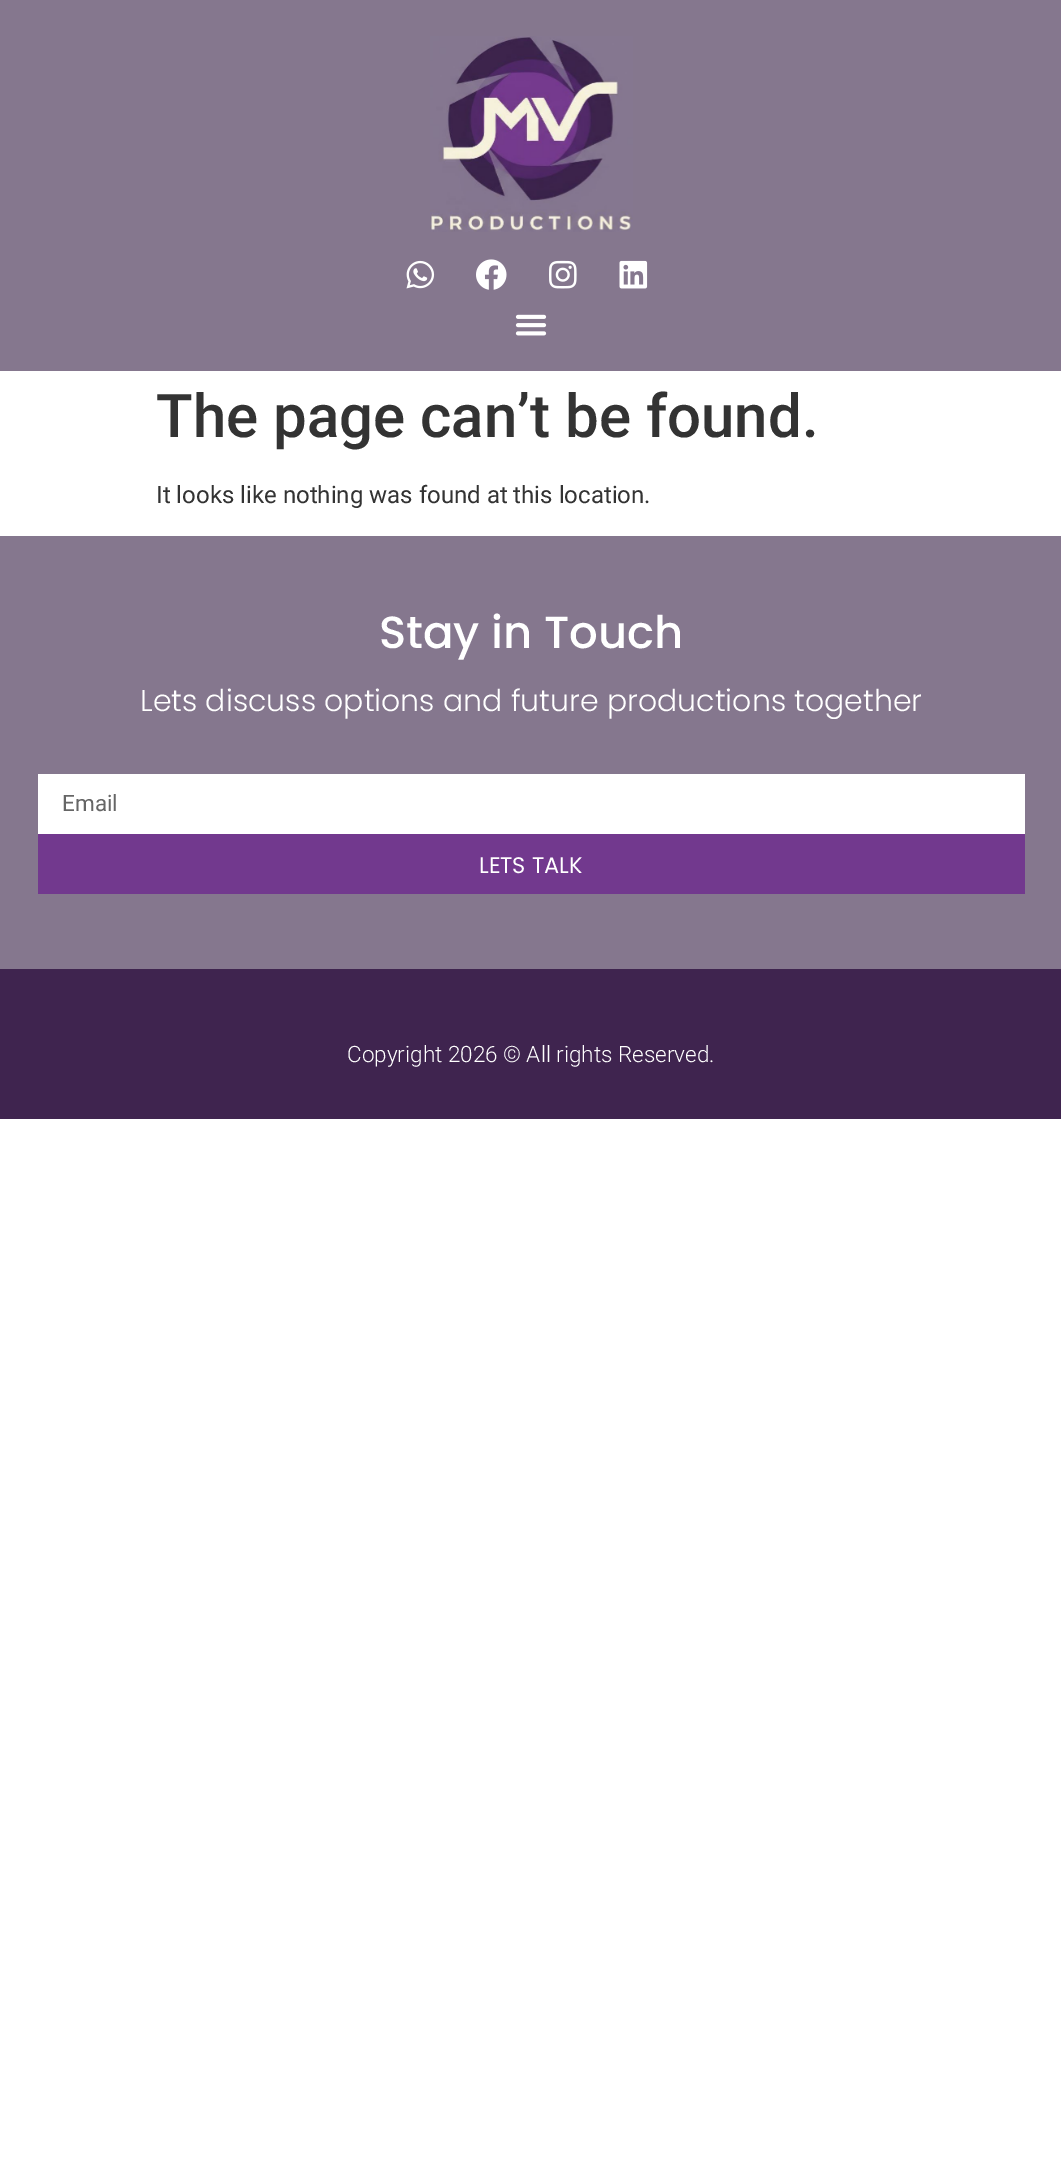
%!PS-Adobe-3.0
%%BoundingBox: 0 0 1061 2171
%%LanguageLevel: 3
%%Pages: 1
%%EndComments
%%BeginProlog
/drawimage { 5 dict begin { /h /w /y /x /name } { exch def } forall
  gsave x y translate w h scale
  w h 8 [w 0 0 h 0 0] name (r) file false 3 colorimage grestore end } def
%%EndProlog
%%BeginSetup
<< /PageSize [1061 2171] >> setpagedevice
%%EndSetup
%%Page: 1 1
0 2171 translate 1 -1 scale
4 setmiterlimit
1 setgray
0 0 1061 2171 rectfill
0.522 0.467 0.557 setrgbcolor
0 0 1061 371 rectfill
(images/1.raw) 430 36 203 196 drawimage
(images/2.raw) 406 260 29 29 drawimage
(images/3.raw) 476 259 31 31 drawimage
(images/4.raw) 549 260 28 29 drawimage
(images/5.raw) 619 260 29 29 drawimage
(images/6.raw) 515 314 32 22 drawimage
0 536 1061 433 rectfill
1 setgray
38 774 987 60 rectfill
0.447 0.224 0.557 setrgbcolor
38 834 987 60 rectfill
0.247 0.141 0.31 setrgbcolor
0 969 1061 150 rectfill
/Roboto-Medium [60 0 0 -60 0 0] selectfont
0.2 setgray
156 437 moveto (The page can’t be found.) show
/Roboto-Regular [24 0 0 -24 0 0] selectfont
156 503 moveto (It looks like nothing was found at this location.) show
/Poppins-Medium [45 0 0 -45 0 0] selectfont
1 setgray
379 648 moveto (Stay in Touch) show
/Poppins-Light [30 0 0 -30 0 0] selectfont
140 711 moveto (Lets discuss options and future productions together) show
/Roboto-Regular [22.5 0 0 -22.5 0 0] selectfont
0.4 setgray
62 811 moveto (Email) show
/Poppins-Regular [22.5 0 0 -22.5 0 0] selectfont
1 setgray
479 873 moveto (LETS TALK) show
/Roboto-Light [22.5 0 0 -22.5 0 0] selectfont
347 1062 moveto (Copyright 2026 © All rights Reserved.) show
showpage
%%EOF
